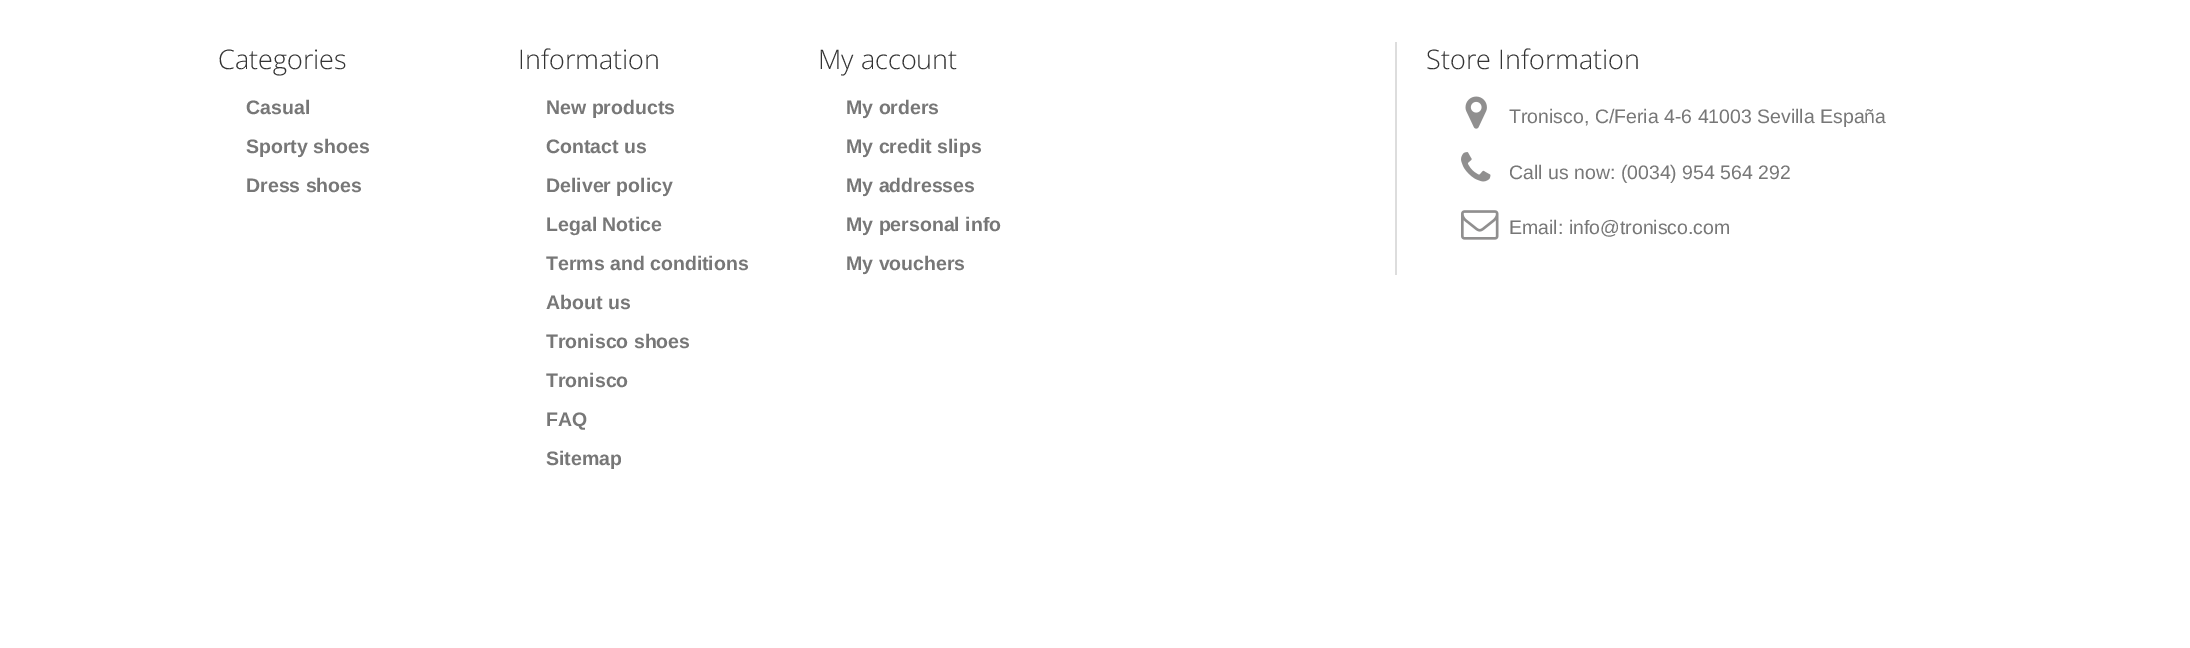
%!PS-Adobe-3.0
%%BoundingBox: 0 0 2190 648
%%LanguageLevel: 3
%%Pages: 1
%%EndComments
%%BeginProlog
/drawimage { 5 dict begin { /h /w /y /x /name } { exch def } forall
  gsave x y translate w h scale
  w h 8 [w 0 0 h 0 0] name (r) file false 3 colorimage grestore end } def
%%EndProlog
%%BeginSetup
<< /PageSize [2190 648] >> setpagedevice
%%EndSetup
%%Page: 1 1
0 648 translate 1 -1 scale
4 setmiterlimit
1 setgray
0 0 2190 648 rectfill
0.867 setgray
1395 42 2 233 rectfill
(images/1.raw) 1465 96 22 33 drawimage
(images/2.raw) 1461 152 30 30 drawimage
(images/3.raw) 1461 210 38 30 drawimage
/OpenSans-Light [27 0 0 -27 0 0] selectfont
0.2 setgray
218 69 moveto (Categories) show
/LiberationSans-Bold [19.5 0 0 -19.5 0 0] selectfont
0.467 setgray
246 114 moveto (Casual) show
246 153 moveto (Sporty shoes) show
246 192 moveto (Dress shoes) show
/OpenSans-Light [27 0 0 -27 0 0] selectfont
0.2 setgray
518 69 moveto (Information) show
/LiberationSans-Bold [19.5 0 0 -19.5 0 0] selectfont
0.467 setgray
546 114 moveto (New products) show
546 153 moveto (Contact us) show
546 192 moveto (Deliver policy) show
546 231 moveto (Legal Notice) show
546 270 moveto (Terms and conditions) show
546 309 moveto (About us) show
546 348 moveto (Tronisco shoes) show
546 387 moveto (Tronisco) show
546 426 moveto (FAQ) show
546 465 moveto (Sitemap) show
/OpenSans-Light [27 0 0 -27 0 0] selectfont
0.2 setgray
818 69 moveto (My account) show
/LiberationSans-Bold [19.5 0 0 -19.5 0 0] selectfont
0.467 setgray
846 114 moveto (My orders) show
846 153 moveto (My credit slips) show
846 192 moveto (My addresses) show
846 231 moveto (My personal info) show
846 270 moveto (My vouchers) show
/OpenSans-Light [27 0 0 -27 0 0] selectfont
0.2 setgray
1426 69 moveto (Store Information) show
/LiberationSans-Regular [19.5 0 0 -19.5 0 0] selectfont
0.467 setgray
1509 123 moveto (Tronisco, C/Feria 4-6 41003 Sevilla España) show
1509 179 moveto (Call us now: \(0034\) 954 564 292) show
1509 234 moveto (Email: info@tronisco.com) show
showpage
%%EOF
